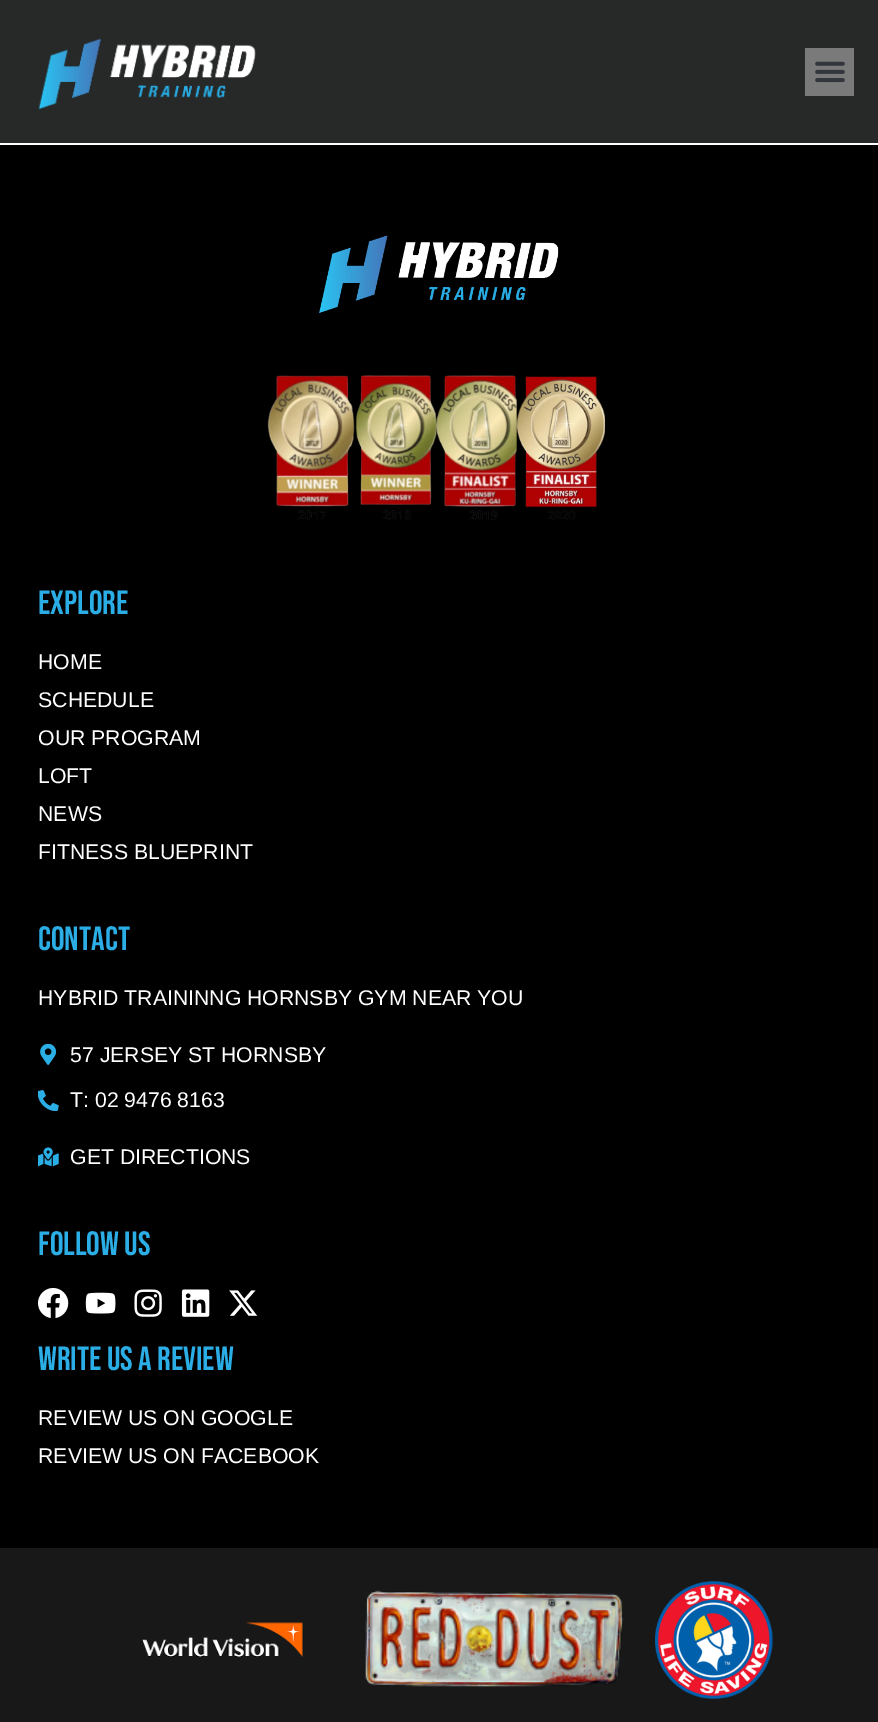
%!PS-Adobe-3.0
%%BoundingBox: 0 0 878 1722
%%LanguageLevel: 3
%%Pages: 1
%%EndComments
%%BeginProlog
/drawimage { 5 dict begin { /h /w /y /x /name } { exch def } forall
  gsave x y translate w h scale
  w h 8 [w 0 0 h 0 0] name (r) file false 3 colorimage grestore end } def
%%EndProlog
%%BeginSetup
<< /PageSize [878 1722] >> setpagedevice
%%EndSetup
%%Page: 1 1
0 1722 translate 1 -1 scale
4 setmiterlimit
1 setgray
0 0 878 1722 rectfill
0.153 0.161 0.161 setrgbcolor
0 0 878 143 rectfill
(images/1.raw) 38 38 218 72 drawimage
0.478 setgray
805 48 49 48 rectfill
(images/2.raw) 815 61 30 22 drawimage
0 setgray
0 145 878 1403 rectfill
(images/3.raw) 319 235 240 78 drawimage
(images/4.raw) 267 375 339 145 drawimage
(images/5.raw) 40 1044 17 21 drawimage
(images/6.raw) 38 1090 21 21 drawimage
(images/7.raw) 38 1147 21 20 drawimage
(images/8.raw) 38 1288 31 30 drawimage
(images/9.raw) 85 1292 31 22 drawimage
(images/10.raw) 134 1289 28 28 drawimage
(images/11.raw) 181 1289 29 28 drawimage
(images/12.raw) 229 1290 29 26 drawimage
0.094 setgray
0 1548 878 174 rectfill
(images/13.raw) 142 1622 162 35 drawimage
(images/14.raw) 365 1590 259 97 drawimage
(images/15.raw) 655 1581 118 118 drawimage
/BebasNeue-Regular [33.75 0 0 -33.75 0 0] selectfont
0.169 0.682 0.902 setrgbcolor
38 614 moveto (Explore) show
/LiberationSans-Regular [21.25 0 0 -21.25 0 0] selectfont
1 setgray
38 669 moveto (HOME) show
38 707 moveto (SCHEDULE) show
38 745 moveto (OUR PROGRAM) show
38 783 moveto (LOFT) show
38 821 moveto (NEWS) show
38 859 moveto (FITNESS BLUEPRINT) show
/BebasNeue-Regular [33.75 0 0 -33.75 0 0] selectfont
0.169 0.682 0.902 setrgbcolor
38 950 moveto (Contact) show
/LiberationSans-Regular [21.25 0 0 -21.25 0 0] selectfont
1 setgray
38 1005 moveto (HYBRID TRAININNG HORNSBY GYM NEAR YOU) show
70 1062 moveto (57 JERSEY ST HORNSBY) show
70 1107 moveto (T: 02 9476 8163) show
70 1164 moveto (GET DIRECTIONS) show
/BebasNeue-Regular [33.75 0 0 -33.75 0 0] selectfont
0.169 0.682 0.902 setrgbcolor
38 1255 moveto (follow us) show
38 1370 moveto (Write Us a Review) show
/LiberationSans-Regular [21.25 0 0 -21.25 0 0] selectfont
1 setgray
38 1425 moveto (REVIEW US ON GOOGLE) show
38 1463 moveto (REVIEW US ON FACEBOOK) show
showpage
%%EOF
